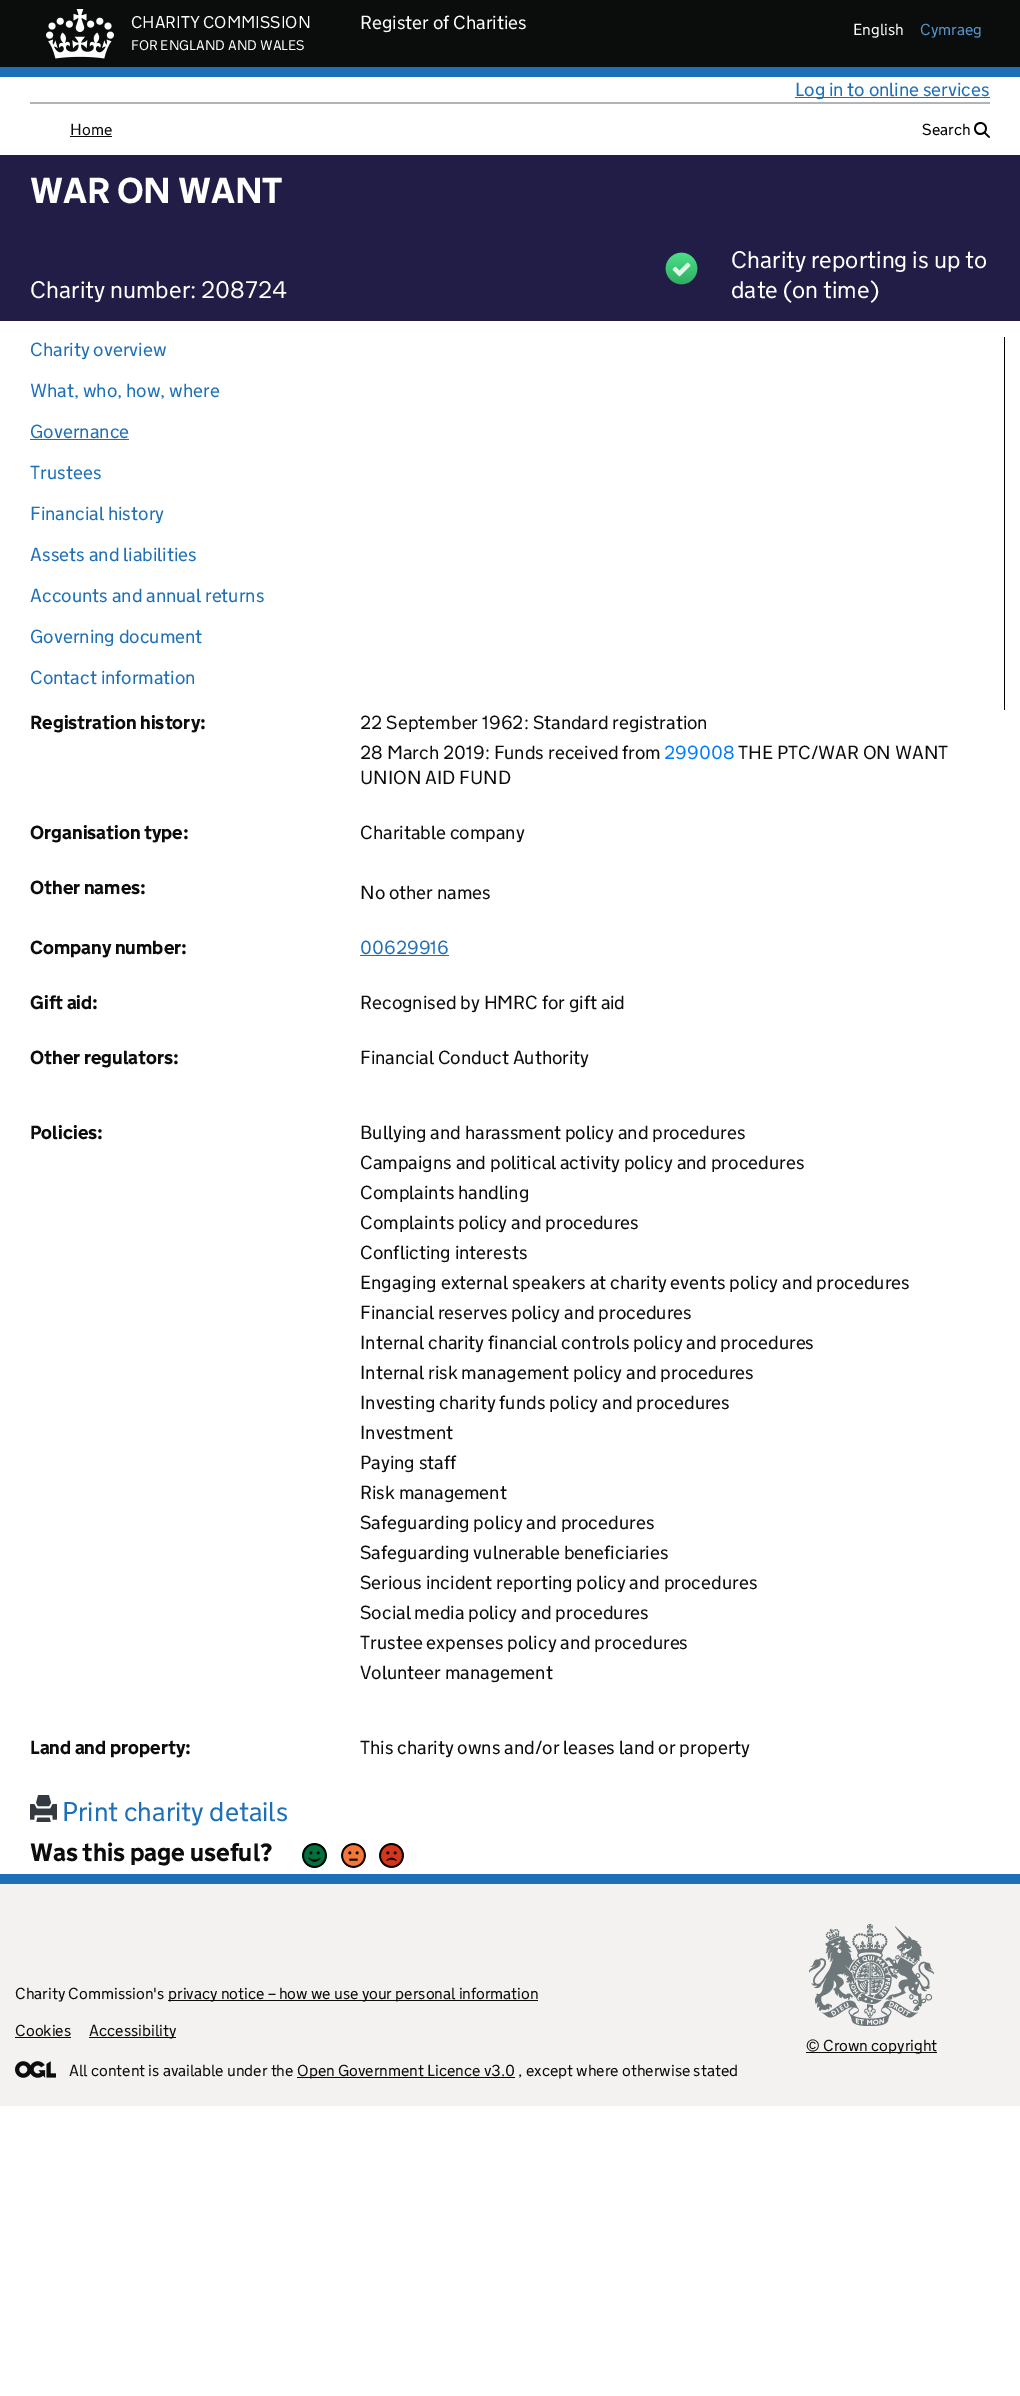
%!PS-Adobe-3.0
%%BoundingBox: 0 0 1020 2396
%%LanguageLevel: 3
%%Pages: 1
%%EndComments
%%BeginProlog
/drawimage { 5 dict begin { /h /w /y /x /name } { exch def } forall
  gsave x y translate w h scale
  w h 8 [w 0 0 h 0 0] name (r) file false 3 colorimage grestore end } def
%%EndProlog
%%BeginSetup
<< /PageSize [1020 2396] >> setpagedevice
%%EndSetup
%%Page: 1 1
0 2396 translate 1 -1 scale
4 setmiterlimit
1 setgray
0 0 1020 2396 rectfill
0.043 0.047 0.047 setrgbcolor
0 0 1020 67 rectfill
0.114 0.439 0.722 setrgbcolor
0 67 1020 10 rectfill
(images/1.raw) 46 9 68 50 drawimage
0.694 0.706 0.714 setrgbcolor
30 102 960 2 rectfill
0.114 0.439 0.722 setrgbcolor
795 97 195 1 rectfill
0.043 0.047 0.047 setrgbcolor
70 136 42 1 rectfill
(images/2.raw) 974 122 16 16 drawimage
0.129 0.114 0.278 setrgbcolor
0 155 1020 166 rectfill
(images/3.raw) 665 252 33 33 drawimage
0 setgray
1004 337 1 373 rectfill
0.114 0.439 0.722 setrgbcolor
30 439 99 1 rectfill
360 955 89 1 rectfill
(images/4.raw) 30 1795 27 27 drawimage
0 0.439 0.235 setrgbcolor
newpath 314.5 1855.5 12.5 0 360 arc closepath fill
(images/5.raw) 302 1843 25 25 drawimage
0.957 0.467 0.22 setrgbcolor
newpath 353.5 1855.5 12.5 0 360 arc closepath fill
(images/6.raw) 341 1843 25 25 drawimage
0.831 0.208 0.11 setrgbcolor
newpath 391.5 1855.5 12.5 0 360 arc closepath fill
(images/7.raw) 379 1843 25 25 drawimage
0.953 0.949 0.945 setrgbcolor
0 1884 1020 222 rectfill
0.114 0.439 0.722 setrgbcolor
0 1874 1020 10 rectfill
0.043 0.047 0.047 setrgbcolor
168 2000 370 1 rectfill
15 2037 56 1 rectfill
89 2037 87 1 rectfill
(images/8.raw) 15 2061 41 17 drawimage
297 2077 218 1 rectfill
(images/9.raw) 809 1924 125 102 drawimage
806 2052 131 1 rectfill
/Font-Light [17 0 0 -17 0 0] selectfont
1 setgray
131 28 moveto (CHARITY COMMISSION) show
/Font-Light [14 0 0 -14 0 0] selectfont
131 50 moveto (FOR ENGLAND AND WALES) show
/Font-Light [19 0 0 -19 0 0] selectfont
360 29 moveto (Register of Charities) show
/Font-Light [16 0 0 -16 0 0] selectfont
853 35 moveto (English) show
0.337 0.58 0.792 setrgbcolor
920 35 moveto (Cymraeg) show
/Font-Light [19 0 0 -19 0 0] selectfont
0.114 0.439 0.722 setrgbcolor
795 96 moveto (Log in to online services) show
/Font-Light [16 0 0 -16 0 0] selectfont
0.043 0.047 0.047 setrgbcolor
70 135 moveto (Home) show
0 setgray
922 135 moveto (Search) show
/Font-Bold [36 0 0 -36 0 0] selectfont
1 setgray
30 203 moveto (WAR ON WANT) show
/Font-Light [24 0 0 -24 0 0] selectfont
30 298 moveto (Charity number: 208724) show
731 268 moveto (Charity reporting is up to) show
731 298 moveto (date \(on time\)) show
/Font-Light [19 0 0 -19 0 0] selectfont
0.114 0.439 0.722 setrgbcolor
30 356 moveto (Charity overview) show
30 397 moveto (What, who, how, where) show
30 438 moveto (Governance) show
30 479 moveto (Trustees) show
30 520 moveto (Financial history) show
30 561 moveto (Assets and liabilities) show
30 602 moveto (Accounts and annual returns) show
30 643 moveto (Governing document) show
30 684 moveto (Contact information) show
/Font-Bold [19 0 0 -19 0 0] selectfont
0.043 0.047 0.047 setrgbcolor
30 729 moveto (Registration history:) show
/Font-Light [19 0 0 -19 0 0] selectfont
360 729 moveto (22 September 1962: Standard registration) show
360 759 moveto (28 March 2019: Funds received from) show
0 0.482 1 setrgbcolor
664 759 moveto (299008) show
0.043 0.047 0.047 setrgbcolor
738 759 moveto (THE PTC/WAR ON WANT) show
360 784 moveto (UNION AID FUND) show
/Font-Bold [19 0 0 -19 0 0] selectfont
30 839 moveto (Organisation type:) show
/Font-Light [19 0 0 -19 0 0] selectfont
360 839 moveto (Charitable company) show
/Font-Bold [19 0 0 -19 0 0] selectfont
30 894 moveto (Other names:) show
/Font-Light [19 0 0 -19 0 0] selectfont
360 899 moveto (No other names) show
/Font-Bold [19 0 0 -19 0 0] selectfont
30 954 moveto (Company number:) show
/Font-Light [19 0 0 -19 0 0] selectfont
0.114 0.439 0.722 setrgbcolor
360 954 moveto (00629916) show
/Font-Bold [19 0 0 -19 0 0] selectfont
0.043 0.047 0.047 setrgbcolor
30 1009 moveto (Gift aid:) show
/Font-Light [19 0 0 -19 0 0] selectfont
360 1009 moveto (Recognised by HMRC for gift aid) show
/Font-Bold [19 0 0 -19 0 0] selectfont
30 1064 moveto (Other regulators:) show
/Font-Light [19 0 0 -19 0 0] selectfont
360 1064 moveto (Financial Conduct Authority) show
/Font-Bold [19 0 0 -19 0 0] selectfont
30 1139 moveto (Policies:) show
/Font-Light [19 0 0 -19 0 0] selectfont
360 1139 moveto (Bullying and harassment policy and procedures) show
360 1169 moveto (Campaigns and political activity policy and procedures) show
360 1199 moveto (Complaints handling) show
360 1229 moveto (Complaints policy and procedures) show
360 1259 moveto (Conflicting interests) show
360 1289 moveto (Engaging external speakers at charity events policy and procedures) show
360 1319 moveto (Financial reserves policy and procedures) show
360 1349 moveto (Internal charity financial controls policy and procedures) show
360 1379 moveto (Internal risk management policy and procedures) show
360 1409 moveto (Investing charity funds policy and procedures) show
360 1439 moveto (Investment) show
360 1469 moveto (Paying staff) show
360 1499 moveto (Risk management) show
360 1529 moveto (Safeguarding policy and procedures) show
360 1559 moveto (Safeguarding vulnerable beneficiaries) show
360 1589 moveto (Serious incident reporting policy and procedures) show
360 1619 moveto (Social media policy and procedures) show
360 1649 moveto (Trustee expenses policy and procedures) show
360 1679 moveto (Volunteer management) show
/Font-Bold [19 0 0 -19 0 0] selectfont
30 1754 moveto (Land and property:) show
/Font-Light [19 0 0 -19 0 0] selectfont
360 1754 moveto (This charity owns and/or leases land or property) show
/Font-Light [27 0 0 -27 0 0] selectfont
0.114 0.439 0.722 setrgbcolor
62 1821 moveto (Print charity details) show
/Font-Bold [25 0 0 -25 0 0] selectfont
0.043 0.047 0.047 setrgbcolor
30 1861 moveto (Was this page useful?) show
/Font-Light [16 0 0 -16 0 0] selectfont
15 1999 moveto (Charity Commission's) show
168 1999 moveto (privacy notice – how we use your personal information) show
15 2036 moveto (Cookies) show
89 2036 moveto (Accessibility) show
69 2076 moveto (All content is available under the) show
297 2076 moveto (Open Government Licence v3.0 , except where otherwise stated) show
806 2051 moveto (© Crown copyright) show
showpage
%%EOF
